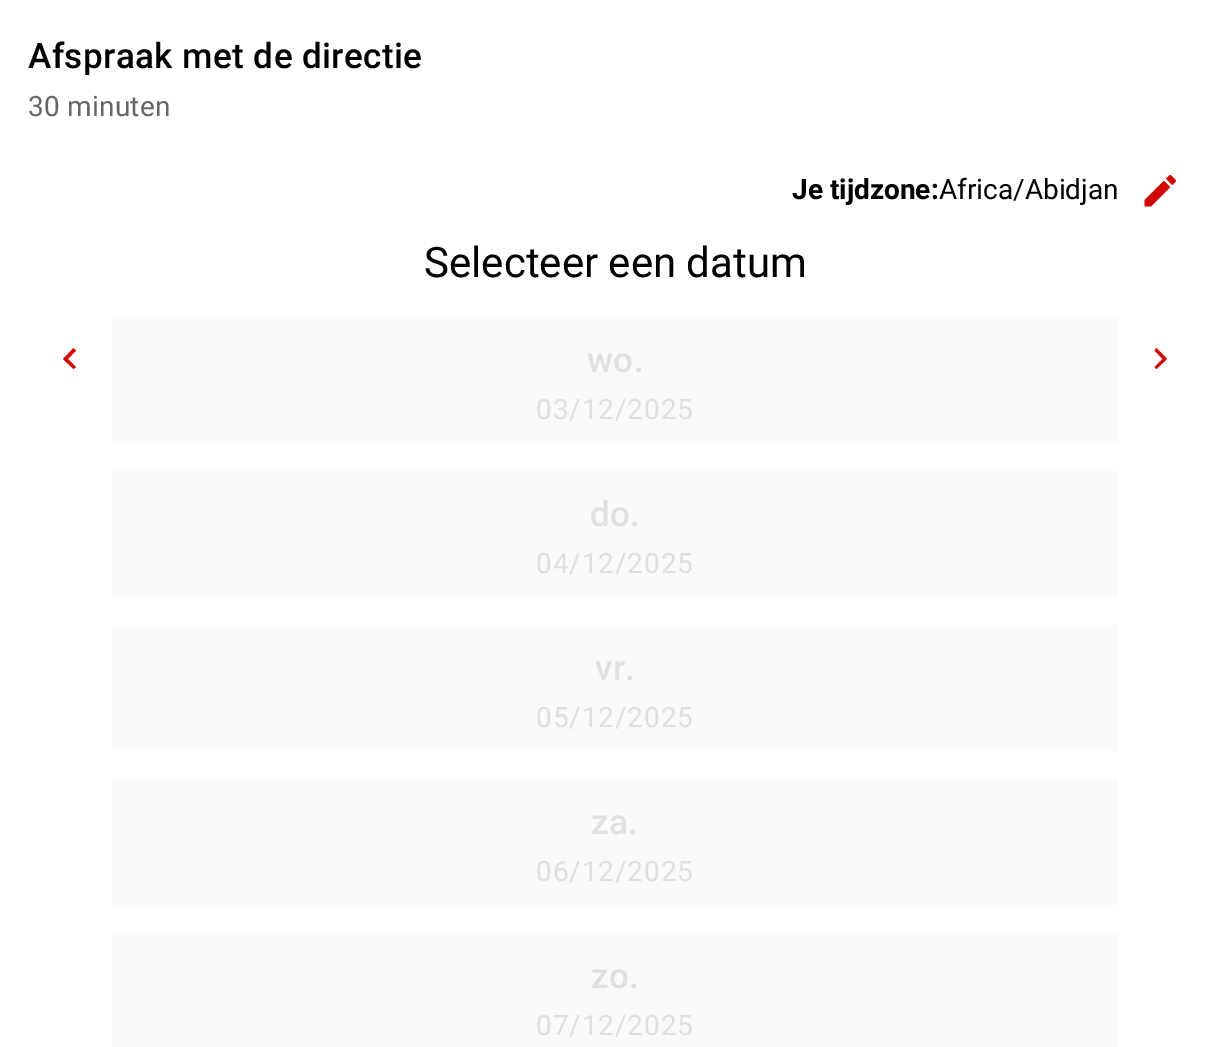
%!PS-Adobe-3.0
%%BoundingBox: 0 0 1230 1047
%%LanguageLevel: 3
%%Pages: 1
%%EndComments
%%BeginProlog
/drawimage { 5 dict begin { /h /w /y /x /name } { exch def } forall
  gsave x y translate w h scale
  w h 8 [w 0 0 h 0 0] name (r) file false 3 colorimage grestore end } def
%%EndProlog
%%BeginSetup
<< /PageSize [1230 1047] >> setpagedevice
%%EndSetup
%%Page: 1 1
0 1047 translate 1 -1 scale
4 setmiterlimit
1 setgray
0 0 1230 1047 rectfill
(images/1.raw) 1144 175 32 32 drawimage
0.82 0.035 0.02 setrgbcolor
newpath 76 367 moveto 73.5 369 lineto 63 359 lineto 73.5 348 lineto 76 350.5 lineto 68 359 lineto closepath fill
0.98 setgray
112 317 1006 126 rectfill
112 471 1006 126 rectfill
112 625 1006 126 rectfill
112 779 1006 126 rectfill
112 933 1006 114 rectfill
0.82 0.035 0.02 setrgbcolor
newpath 1154.5 367 moveto 1162.5 359 lineto 1154.5 350.5 lineto 1156.5 348 lineto 1167 359 lineto 1156.5 369 lineto closepath fill
/Roboto-Medium [35 0 0 -35 0 0] selectfont
0 setgray
28 68 moveto 0.4 0 (Afspraak met de directie) ashow
/Roboto-Regular [28 0 0 -28 0 0] selectfont
0.4 setgray
28 116 moveto 0.25 0 (30 minuten) ashow
/Roboto-Bold [28 0 0 -28 0 0] selectfont
0 setgray
792 199 moveto (Je tijdzone:) show
/Roboto-Regular [28 0 0 -28 0 0] selectfont
939 199 moveto (Africa/Abidjan) show
/Roboto-Regular [42 0 0 -42 0 0] selectfont
424 277 moveto (Selecteer een datum) show
/Roboto-Medium [35 0 0 -35 0 0] selectfont
0.878 setgray
587 372 moveto 0.4 0 (wo.) ashow
/Roboto-Regular [28 0 0 -28 0 0] selectfont
536 419 moveto 0.9 0 (03/12/2025) ashow
/Roboto-Medium [35 0 0 -35 0 0] selectfont
590 526 moveto 0.4 0 (do.) ashow
/Roboto-Regular [28 0 0 -28 0 0] selectfont
536 573 moveto 0.9 0 (04/12/2025) ashow
/Roboto-Medium [35 0 0 -35 0 0] selectfont
595 680 moveto 0.4 0 (vr.) ashow
/Roboto-Regular [28 0 0 -28 0 0] selectfont
536 727 moveto 0.9 0 (05/12/2025) ashow
/Roboto-Medium [35 0 0 -35 0 0] selectfont
591 834 moveto 0.4 0 (za.) ashow
/Roboto-Regular [28 0 0 -28 0 0] selectfont
536 881 moveto 0.9 0 (06/12/2025) ashow
/Roboto-Medium [35 0 0 -35 0 0] selectfont
591 988 moveto 0.4 0 (zo.) ashow
/Roboto-Regular [28 0 0 -28 0 0] selectfont
536 1035 moveto 0.9 0 (07/12/2025) ashow
showpage
%%EOF
